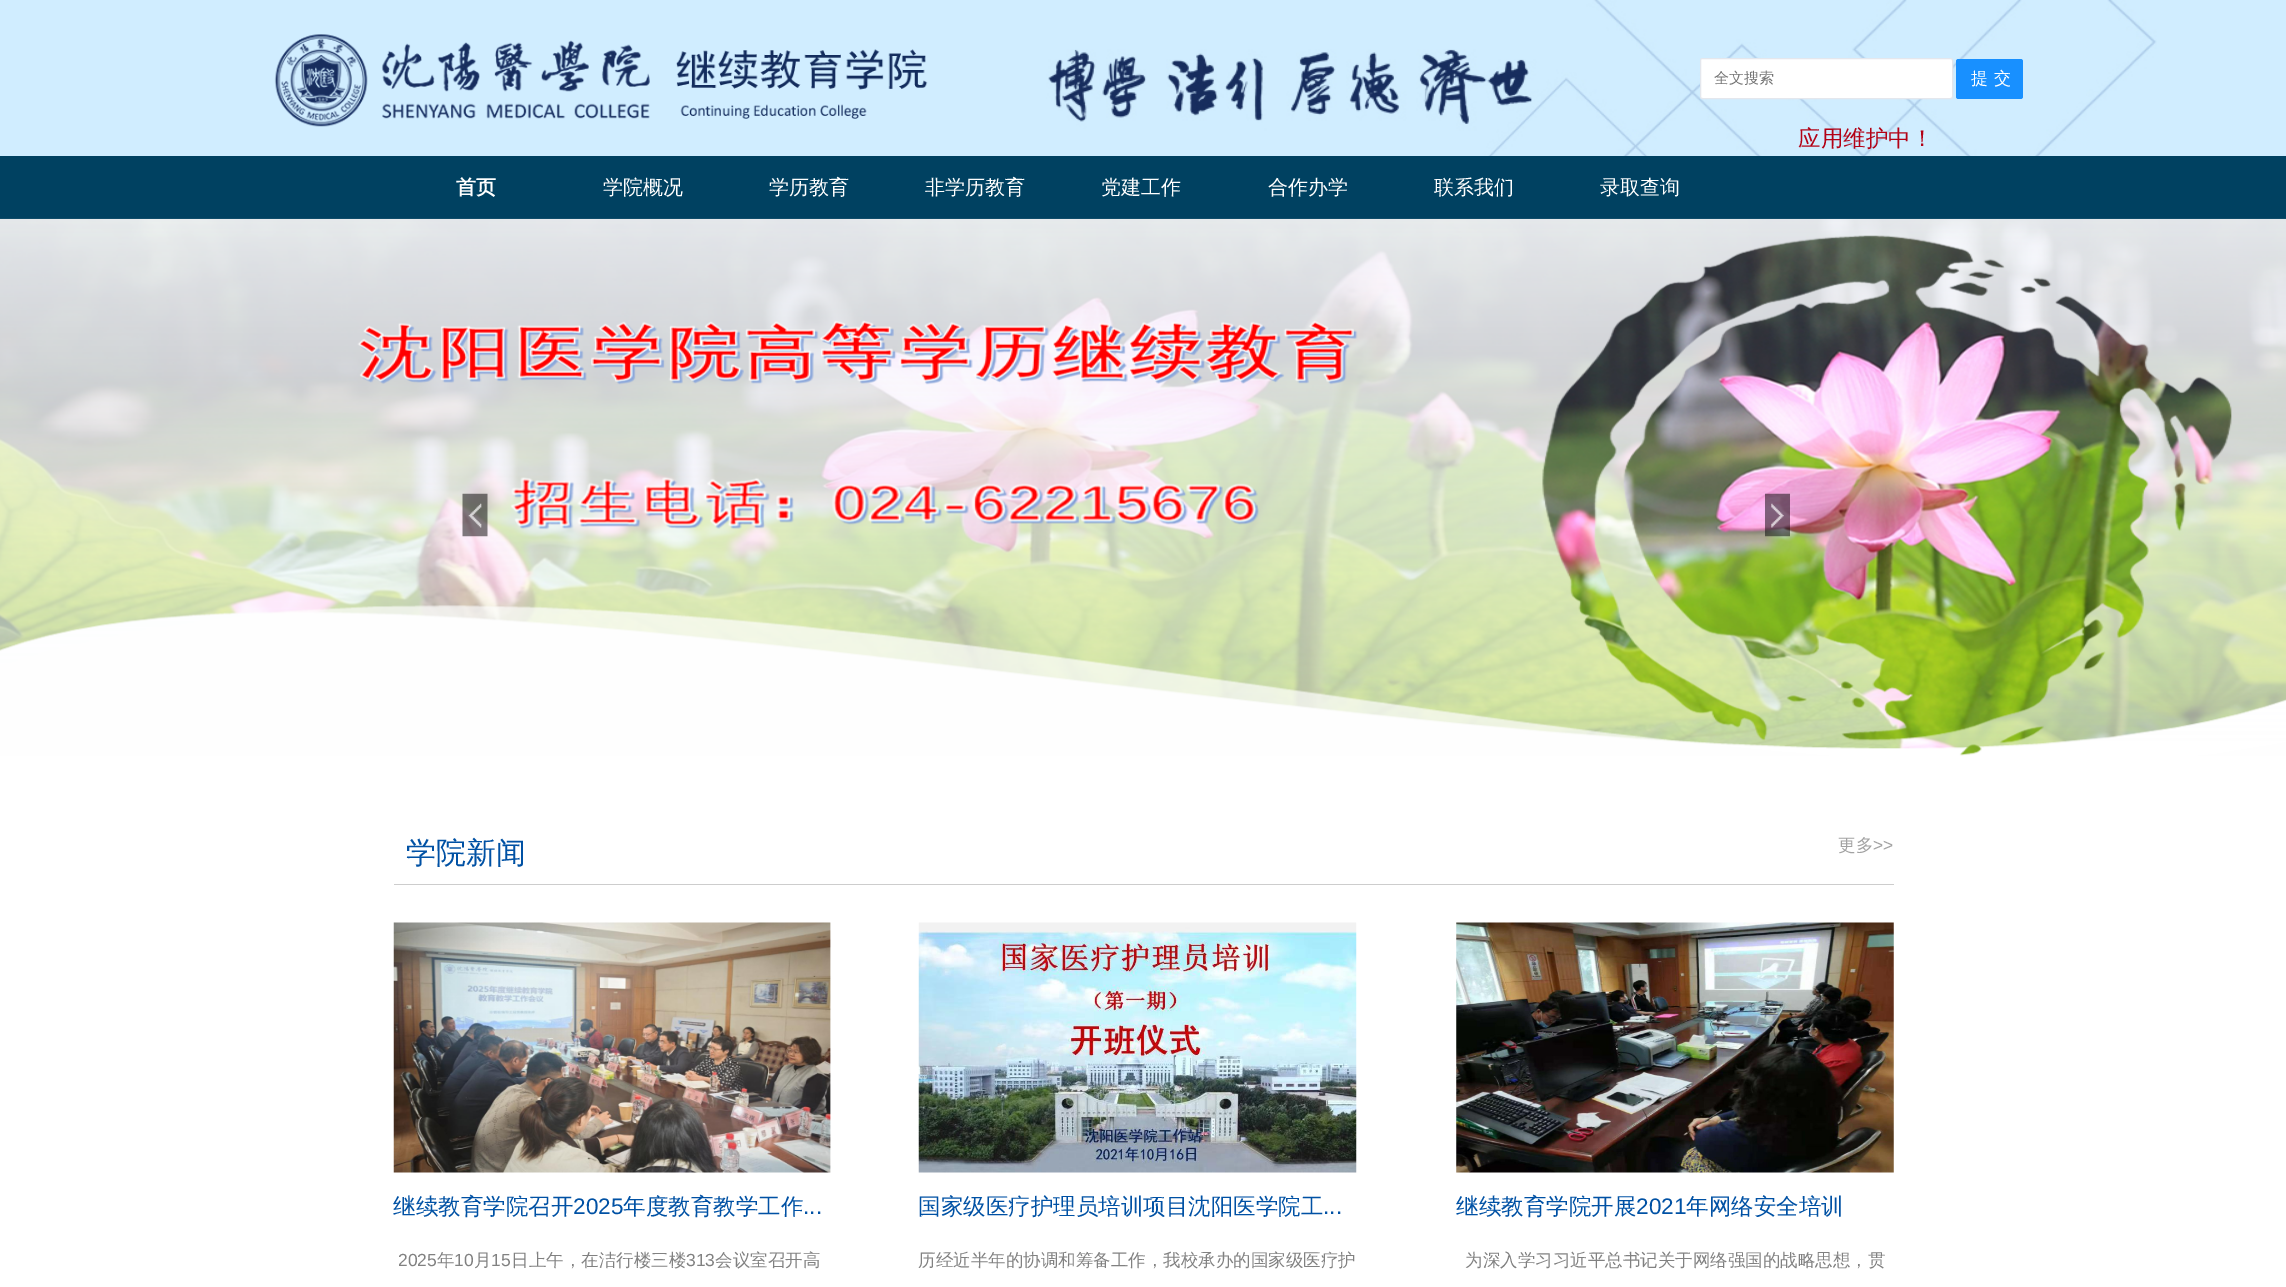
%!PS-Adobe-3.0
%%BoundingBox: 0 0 2286 1287
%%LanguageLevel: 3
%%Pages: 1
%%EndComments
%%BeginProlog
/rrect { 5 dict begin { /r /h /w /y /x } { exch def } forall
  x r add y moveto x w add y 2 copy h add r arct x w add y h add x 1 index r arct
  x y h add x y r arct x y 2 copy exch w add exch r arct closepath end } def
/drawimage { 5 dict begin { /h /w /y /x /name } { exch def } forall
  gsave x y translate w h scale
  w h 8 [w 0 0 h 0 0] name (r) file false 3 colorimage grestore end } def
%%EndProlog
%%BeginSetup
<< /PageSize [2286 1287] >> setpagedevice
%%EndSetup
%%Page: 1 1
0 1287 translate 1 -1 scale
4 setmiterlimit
1 setgray
0 0 2286 1287 rectfill
(images/1.raw) 0 0 2286 156 drawimage
(images/2.raw) 274 34 654 93 drawimage
1700.5 58.5 252 40 2 rrect gsave fill grestore
0.894 0.906 0.929 setrgbcolor
stroke
0.094 0.565 1 setrgbcolor
1956 59 67 40 2.5 rrect fill
0 0.255 0.38 setrgbcolor
0 156 2286 63 rectfill
(images/3.raw) 0 218 2286 538 drawimage
(images/4.raw) 462 493 26 44 drawimage
(images/5.raw) 1765 493 25 44 drawimage
0.804 setgray
394 884 1500 1 rectfill
(images/6.raw) 393 922 438 251 drawimage
(images/7.raw) 918 922 439 251 drawimage
(images/8.raw) 1456 922 438 251 drawimage
/WenQuanYiZenHei-Medium [15 0 0 -15 0 0] selectfont
0.459 setgray
1714 83 moveto (全文搜索) show
/WenQuanYiZenHei-Medium [17 0 0 -17 0 0] selectfont
1 setgray
1971 84 moveto 6 0 (提交) ashow
/WenQuanYiZenHei-Medium [22.5 0 0 -22.5 0 0] selectfont
0.702 0.008 0.086 setrgbcolor
1798 146 moveto (应用维护中！) show
/WenQuanYiZenHei-Bold [20 0 0 -20 0 0] selectfont
1 setgray
456 194 moveto (首页) show
/WenQuanYiZenHei-Medium [20 0 0 -20 0 0] selectfont
603 194 moveto (学院概况) show
769 194 moveto (学历教育) show
925 194 moveto (非学历教育) show
1101 194 moveto (党建工作) show
1268 194 moveto (合作办学) show
1434 194 moveto (联系我们) show
1600 194 moveto (录取查询) show
/WenQuanYiZenHei-Medium [30 0 0 -30 0 0] selectfont
0 0.318 0.643 setrgbcolor
406 863 moveto (学院新闻) show
/WenQuanYiZenHei-Medium [17.5 0 0 -17.5 0 0] selectfont
0.635 setgray
1838 851 moveto (更多) show
/LiberationSans-Regular [17.5 0 0 -17.5 0 0] selectfont
1873 851 moveto (>>) show
/WenQuanYiZenHei-Medium [22.5 0 0 -22.5 0 0] selectfont
0 0.318 0.643 setrgbcolor
393 1214 moveto (继续教育学院召开) show
/LiberationSans-Regular [22.5 0 0 -22.5 0 0] selectfont
573 1214 moveto (2025) show
/WenQuanYiZenHei-Medium [22.5 0 0 -22.5 0 0] selectfont
623 1214 moveto (年度教育教学工作) show
/LiberationSans-Regular [22.5 0 0 -22.5 0 0] selectfont
803 1214 moveto (...) show
/LiberationSans-Regular [17.5 0 0 -17.5 0 0] selectfont
0.506 setgray
398 1266 moveto (2025) show
/WenQuanYiZenHei-Medium [17.5 0 0 -17.5 0 0] selectfont
437 1266 moveto (年) show
/LiberationSans-Regular [17.5 0 0 -17.5 0 0] selectfont
454 1266 moveto (10) show
/WenQuanYiZenHei-Medium [17.5 0 0 -17.5 0 0] selectfont
474 1266 moveto (月) show
/LiberationSans-Regular [17.5 0 0 -17.5 0 0] selectfont
491 1266 moveto (15) show
/WenQuanYiZenHei-Medium [17.5 0 0 -17.5 0 0] selectfont
511 1266 moveto (日上午，在洁行楼三楼) show
/LiberationSans-Regular [17.5 0 0 -17.5 0 0] selectfont
686 1266 moveto (313) show
/WenQuanYiZenHei-Medium [17.5 0 0 -17.5 0 0] selectfont
715 1266 moveto (会议室召开高) show
/WenQuanYiZenHei-Medium [22.5 0 0 -22.5 0 0] selectfont
0 0.318 0.643 setrgbcolor
918 1214 moveto (国家级医疗护理员培训项目沈阳医学院工) show
/LiberationSans-Regular [22.5 0 0 -22.5 0 0] selectfont
1323 1214 moveto (...) show
/WenQuanYiZenHei-Medium [17.5 0 0 -17.5 0 0] selectfont
0.506 setgray
918 1266 moveto (历经近半年的协调和筹备工作，我校承办的国家级医疗护) show
/WenQuanYiZenHei-Medium [22.5 0 0 -22.5 0 0] selectfont
0 0.318 0.643 setrgbcolor
1456 1214 moveto (继续教育学院开展) show
/LiberationSans-Regular [22.5 0 0 -22.5 0 0] selectfont
1636 1214 moveto (2021) show
/WenQuanYiZenHei-Medium [22.5 0 0 -22.5 0 0] selectfont
1686 1214 moveto (年网络安全培训) show
/WenQuanYiZenHei-Medium [17.5 0 0 -17.5 0 0] selectfont
0.506 setgray
1465 1266 moveto (为深入学习习近平总书记关于网络强国的战略思想，贯) show
showpage
%%EOF
